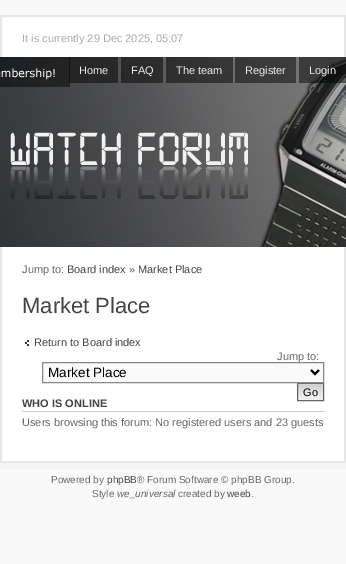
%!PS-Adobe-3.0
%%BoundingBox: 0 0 346 564
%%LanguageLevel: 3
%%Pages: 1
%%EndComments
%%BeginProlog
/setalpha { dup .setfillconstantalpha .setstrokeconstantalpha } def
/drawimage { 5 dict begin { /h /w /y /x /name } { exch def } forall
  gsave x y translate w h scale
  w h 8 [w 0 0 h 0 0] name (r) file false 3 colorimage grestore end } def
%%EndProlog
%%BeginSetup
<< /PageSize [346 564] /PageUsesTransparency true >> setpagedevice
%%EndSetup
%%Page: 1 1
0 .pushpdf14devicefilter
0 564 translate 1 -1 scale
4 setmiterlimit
0.976 setgray
0 0 346 564 rectfill
1 setgray
newpath 1 16 moveto 345 16 lineto 345 462 lineto 1 462 lineto closepath gsave fill grestore
0.906 setgray
2 setlinewidth
stroke
(images/1.raw) 0 57 346 190 drawimage
0.49 setalpha
0 setgray
69 57 49 26 rectfill
121 57 42 26 rectfill
166 57 67 26 rectfill
235 57 61 26 rectfill
299 57 47 26 rectfill
1 setalpha
(images/2.raw) 25 340 4 6 drawimage
(images/3.raw) 298 384 25 16 drawimage
0.4 setgray
1 setlinewidth
297.5 383.5 26 17 rectstroke
0.8 setgray
22 411 302 1 rectfill
(images/4.raw) 0 463 346 6 drawimage
/LiberationSans-Regular [11 0 0 -11 0 0] selectfont
0.667 setgray
22 42 moveto (It is currently 29 Dec 2025, 05:07) show
0.918 setgray
79 74 moveto (Home) show
131 74 moveto (FAQ) show
176 74 moveto (The team) show
245 74 moveto (Register) show
309 74 moveto (Login) show
0.4 setgray
22 273 moveto (Jump to:) show
0.267 setgray
67 273 moveto (Board index) show
0.4 setgray
129 273 moveto (») show
0.267 setgray
138 273 moveto (Market Place) show
/LiberationSans-Regular [22 0 0 -22 0 0] selectfont
22 313 moveto (Market Place) show
/LiberationSans-Regular [11 0 0 -11 0 0] selectfont
34 346 moveto (Return to Board index) show
0.4 setgray
277 360 moveto (Jump to:) show
0.98 setgray
newpath 42.5 362.5 moveto 323.5 362.5 lineto 323.5 382.5 lineto 42.5 382.5 lineto closepath gsave fill grestore
0.533 setgray
stroke
0 setgray
2 setlinewidth
newpath 311 370 moveto 315 374 lineto 319 370 lineto stroke
/LiberationSans-Regular [13.5 0 0 -13.5 0 0] selectfont
48 377 moveto (Market Place) show
/LiberationSans-Regular [11 0 0 -11 0 0] selectfont
303 396 moveto (Go) show
/LiberationSans-Bold [11 0 0 -11 0 0] selectfont
0.267 setgray
22 407 moveto (WHO IS ONLINE) show
/LiberationSans-Regular [11 0 0 -11 0 0] selectfont
0.4 setgray
22 426 moveto (Users browsing this forum: No registered users and 23 guests) show
/LiberationSans-Regular [10 0 0 -10 0 0] selectfont
51 483 moveto (Powered by) show
0.267 setgray
107 483 moveto (phpBB) show
0.4 setgray
137 483 moveto (® Forum Software © phpBB Group.) show
92 497 moveto (Style) show
/LiberationSans-Italic [10 0 0 -10 0 0] selectfont
117 497 moveto (we_universal) show
/LiberationSans-Regular [10 0 0 -10 0 0] selectfont
178 497 moveto (created by) show
0.267 setgray
227 497 moveto (weeb) show
0.4 setgray
251 497 moveto (.) show
.poppdf14devicefilter showpage
%%EOF
